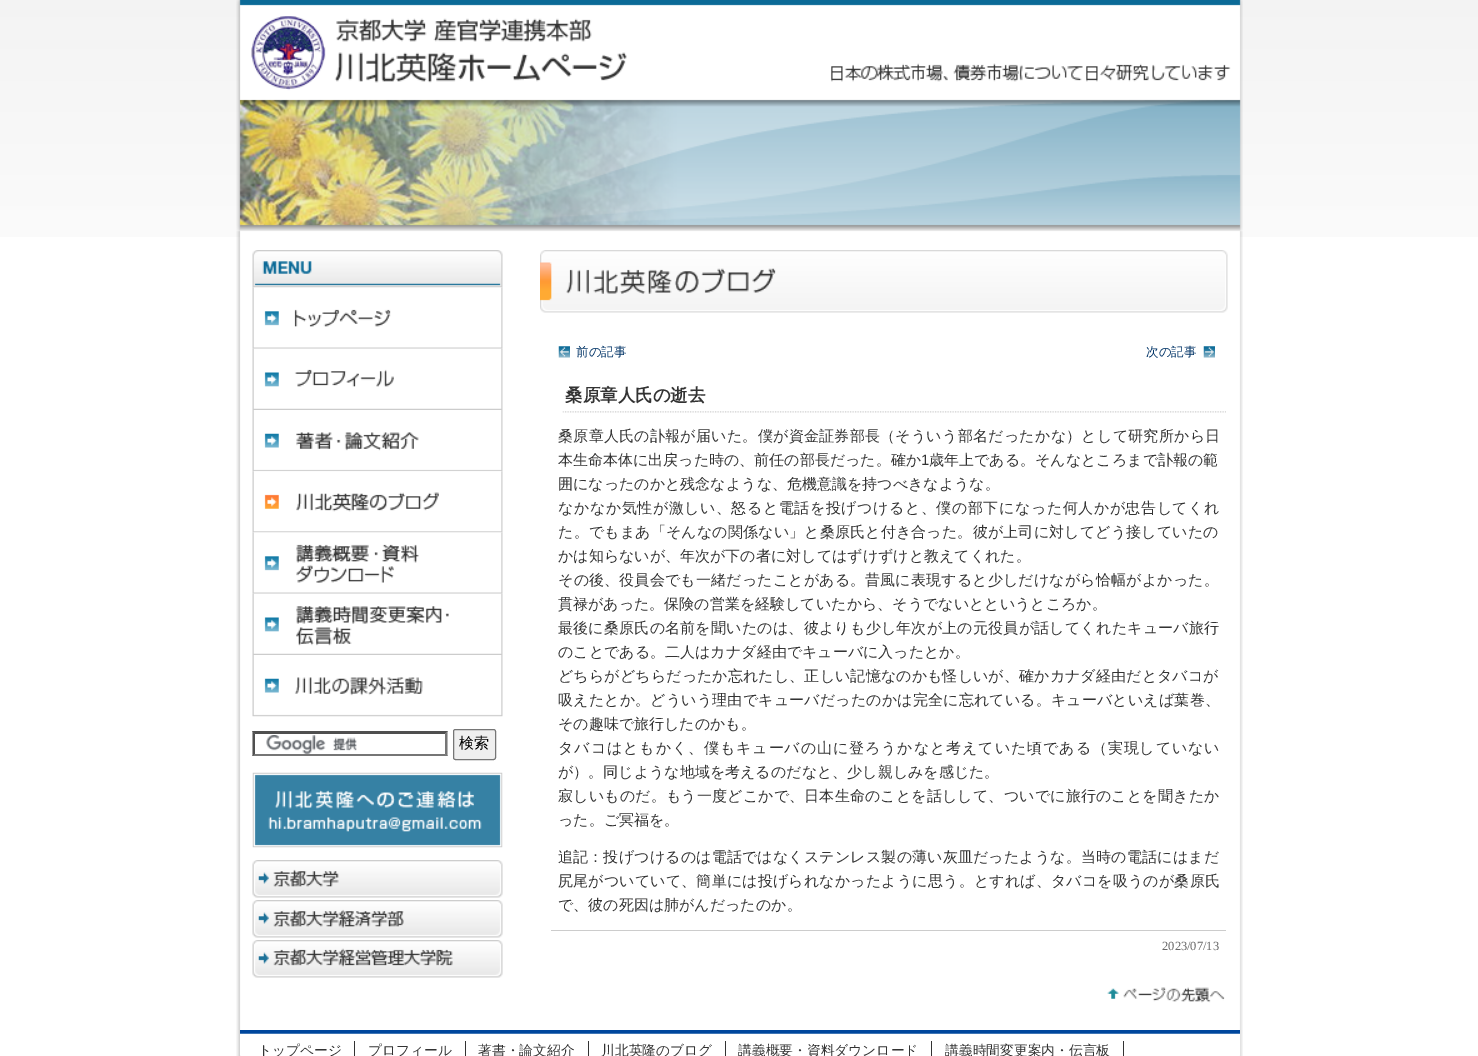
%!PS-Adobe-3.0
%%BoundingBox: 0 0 1478 1056
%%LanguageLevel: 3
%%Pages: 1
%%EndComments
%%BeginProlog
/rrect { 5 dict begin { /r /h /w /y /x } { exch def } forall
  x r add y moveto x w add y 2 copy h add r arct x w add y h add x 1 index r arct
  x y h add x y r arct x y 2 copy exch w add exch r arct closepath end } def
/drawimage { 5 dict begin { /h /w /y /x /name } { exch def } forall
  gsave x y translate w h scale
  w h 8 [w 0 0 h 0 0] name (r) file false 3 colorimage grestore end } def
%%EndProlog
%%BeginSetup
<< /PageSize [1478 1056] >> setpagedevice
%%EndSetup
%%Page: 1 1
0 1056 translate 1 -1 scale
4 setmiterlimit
1 setgray
0 0 1478 1056 rectfill
(images/1.raw) 0 0 1478 237 drawimage
(images/2.raw) 236 0 1007 232 drawimage
(images/3.raw) 236 231 1007 799 drawimage
(images/4.raw) 252 250 251 38 drawimage
(images/5.raw) 252 287 251 62 drawimage
(images/6.raw) 252 348 251 62 drawimage
(images/7.raw) 252 410 251 62 drawimage
(images/8.raw) 252 471 251 62 drawimage
(images/9.raw) 252 532 251 62 drawimage
(images/10.raw) 252 593 251 62 drawimage
(images/11.raw) 252 655 251 62 drawimage
(images/12.raw) 266 735 91 19 drawimage
0.31 setgray
newpath 252 731 moveto 448 731 lineto 445 734 lineto 255 734 lineto closepath fill
0.463 setgray
newpath 447.5 731 moveto 447.5 756 lineto 445 754 lineto 445 734 lineto closepath fill
newpath 448 756 moveto 252 756 lineto 255 754 lineto 445 754 lineto closepath fill
0.31 setgray
newpath 252.5 756 moveto 252.5 731 lineto 255 734 lineto 255 754 lineto closepath fill
0.937 setgray
453.5 729.5 42 30 2 rrect gsave fill grestore
0.463 setgray
stroke
(images/13.raw) 252 772 251 76 drawimage
(images/14.raw) 252 860 251 38 drawimage
(images/15.raw) 252 900 251 38 drawimage
(images/16.raw) 252 940 251 38 drawimage
(images/17.raw) 540 250 688 63 drawimage
(images/18.raw) 558 346 12 12 drawimage
(images/19.raw) 1203 346 12 12 drawimage
(images/20.raw) 562 411 664 2 drawimage
0.8 setgray
551 930 675 1 rectfill
(images/21.raw) 1107 987 118 16 drawimage
(images/22.raw) 236 1030 1007 26 drawimage
(images/23.raw) 240 1030 1000 25 drawimage
0.2 setgray
354 1041 1 15 rectfill
465 1041 1 15 rectfill
588 1041 1 15 rectfill
725 1041 1 15 rectfill
931 1041 1 15 rectfill
1123 1041 1 15 rectfill
/WenQuanYiZenHei-Medium [15 0 0 -15 0 0] selectfont
0 setgray
459 748 moveto (検索) show
/WenQuanYiZenHei-Medium [12.5 0 0 -12.5 0 0] selectfont
0 0.2 0.4 setrgbcolor
576 356 moveto (前の記事) show
1146 356 moveto (次の記事) show
/WenQuanYiZenHei-Bold [17.5 0 0 -17.5 0 0] selectfont
0.2 setgray
565 401 moveto (桑原章人氏の逝去) show
/WenQuanYiZenHei-Medium [15 0 0 -15 0 0] selectfont
558 441 moveto 0.25 0 (桑原章人氏の訃報が届いた。僕が資金証券部長（そういう部名だったかな）として研究所から日) ashow
558 465 moveto (本生命本体に出戻った時の、前任の部長だった。確か) show
/LiberationSans-Regular [15 0 0 -15 0 0] selectfont
921 465 moveto (1) show
/WenQuanYiZenHei-Medium [15 0 0 -15 0 0] selectfont
929 465 moveto (歳年上である。そんなところまで訃報の範) show
558 489 moveto (囲になったのかと残念なような、危機意識を持つべきなような。) show
558 513 moveto 0.55 0 (なかなか気性が激しい、怒ると電話を投げつけると、僕の部下になった何人かが忠告してくれ) ashow
558 537 moveto 0.15 0 (た。でもまあ「そんなの関係ない」と桑原氏と付き合った。彼が上司に対してどう接していたの) ashow
558 561 moveto (かは知らないが、年次が下の者に対してはずけずけと教えてくれた。) show
558 585 moveto 0.15 0 (その後、役員会でも一緒だったことがある。昔風に表現すると少しだけながら恰幅がよかった。) ashow
558 609 moveto (貫禄があった。保険の営業を経験していたから、そうでないとというところか。) show
558 633 moveto 0.2 0 (最後に桑原氏の名前を聞いたのは、彼よりも少し年次が上の元役員が話してくれたキューバ旅行) ashow
558 657 moveto (のことである。二人はカナダ経由でキューバに入ったとか。) show
558 681 moveto 0.1 0 (どちらがどちらだったか忘れたし、正しい記憶なのかも怪しいが、確かカナダ経由だとタバコが) ashow
558 705 moveto 0.15 0 (吸えたとか。どういう理由でキューバだったのかは完全に忘れている。キューバといえば葉巻、) ashow
558 729 moveto (その趣味で旅行したのかも。) show
558 753 moveto 0.9 0 (タバコはともかく、僕もキューバの山に登ろうかなと考えていた頃である（実現していない) ashow
558 777 moveto (が）。同じような地域を考えるのだなと、少し親しみを感じた。) show
558 801 moveto 0.15 0 (寂しいものだ。もう一度どこかで、日本生命のことを話しして、ついでに旅行のことを聞きたか) ashow
558 825 moveto (った。ご冥福を。) show
558 862 moveto 0.15 0 (追記：投げつけるのは電話ではなくステンレス製の薄い灰皿だったような。当時の電話にはまだ) ashow
558 886 moveto 0.15 0 (尻尾がついていて、簡単には投げられなかったように思う。とすれば、タバコを吸うのが桑原氏) ashow
558 910 moveto (で、彼の死因は肺がんだったのか。) show
/LiberationSerif-Regular [12.5 0 0 -12.5 0 0] selectfont
0.4 setgray
1162 950 moveto (2023/07/13) show
/WenQuanYiZenHei-Medium [13.75 0 0 -13.75 0 0] selectfont
0.2 setgray
258 1055 moveto (トップページ) show
368 1055 moveto (プロフィール) show
478 1055 moveto (著書・論文紹介) show
601 1055 moveto (川北英隆のブログ) show
738 1055 moveto (講義概要・資料ダウンロード) show
945 1055 moveto (講義時間変更案内・伝言板) show
showpage
%%EOF
